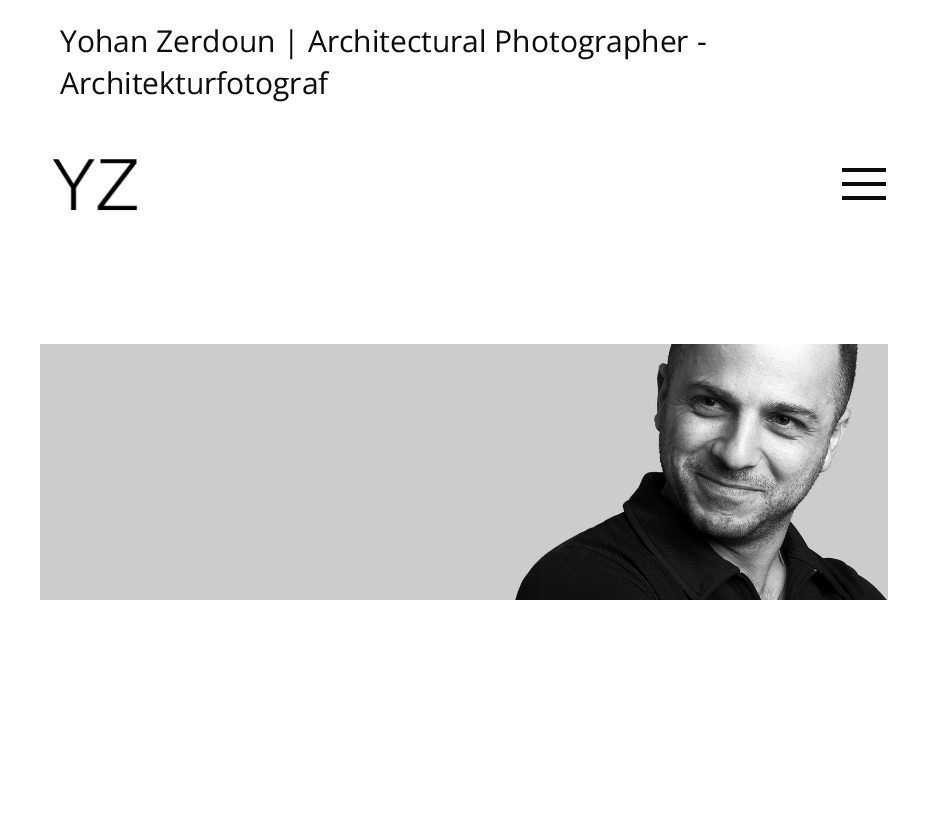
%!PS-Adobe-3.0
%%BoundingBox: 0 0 928 834
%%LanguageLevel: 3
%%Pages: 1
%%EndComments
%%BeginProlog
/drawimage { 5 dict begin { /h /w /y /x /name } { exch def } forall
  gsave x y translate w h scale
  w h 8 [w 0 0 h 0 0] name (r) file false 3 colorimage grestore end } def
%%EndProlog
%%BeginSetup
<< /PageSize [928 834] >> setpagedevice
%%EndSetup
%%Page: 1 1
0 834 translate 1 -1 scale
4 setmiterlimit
1 setgray
0 0 928 834 rectfill
(images/1.raw) 53 159 85 52 drawimage
0.047 setgray
842 168 44 4 rectfill
842 182 44 4 rectfill
842 196 44 4 rectfill
(images/2.raw) 40 344 848 256 drawimage
/OpenSans-Regular [30 0 0 -30 0 0] selectfont
60 52 moveto (Yohan Zerdoun | Architectural Photographer -) show
60 94 moveto (Architekturfotograf) show
showpage
%%EOF
